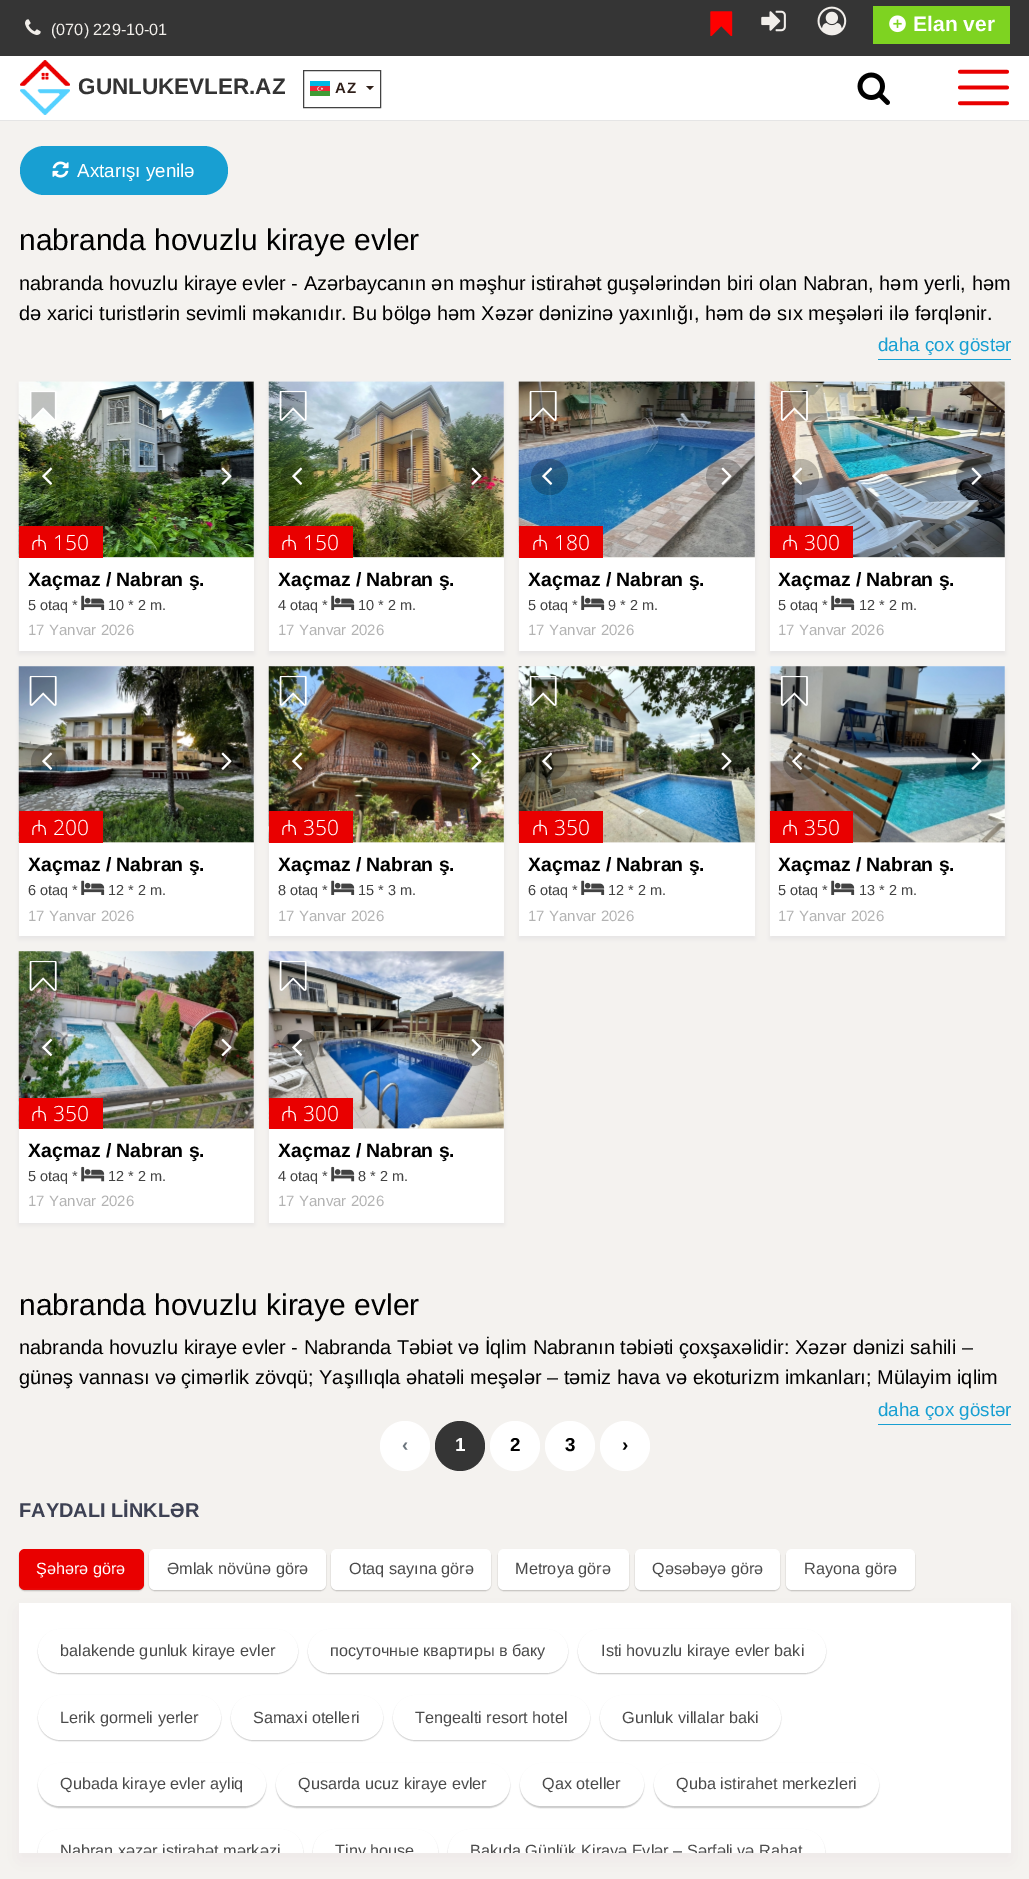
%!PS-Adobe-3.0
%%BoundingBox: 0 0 1029 1879
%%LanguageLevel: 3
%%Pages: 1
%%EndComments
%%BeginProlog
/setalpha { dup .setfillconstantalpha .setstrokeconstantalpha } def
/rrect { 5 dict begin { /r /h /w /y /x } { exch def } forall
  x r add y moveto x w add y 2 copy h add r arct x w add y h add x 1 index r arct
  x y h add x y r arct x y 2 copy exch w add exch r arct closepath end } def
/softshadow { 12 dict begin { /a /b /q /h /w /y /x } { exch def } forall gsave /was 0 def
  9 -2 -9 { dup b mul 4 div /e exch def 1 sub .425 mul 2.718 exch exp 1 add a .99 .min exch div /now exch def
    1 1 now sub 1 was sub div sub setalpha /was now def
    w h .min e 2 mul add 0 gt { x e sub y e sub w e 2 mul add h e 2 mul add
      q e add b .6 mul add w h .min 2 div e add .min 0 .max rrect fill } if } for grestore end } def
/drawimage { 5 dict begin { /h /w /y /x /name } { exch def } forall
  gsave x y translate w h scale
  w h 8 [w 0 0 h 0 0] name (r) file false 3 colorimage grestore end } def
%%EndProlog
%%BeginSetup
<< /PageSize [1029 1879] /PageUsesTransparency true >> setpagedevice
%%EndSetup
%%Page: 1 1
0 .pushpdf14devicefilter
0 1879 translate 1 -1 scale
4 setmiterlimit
0.957 0.949 0.937 setrgbcolor
0 0 1029 1879 rectfill
1 setgray
0 56 1029 64 rectfill
0.898 setgray
0 120 1029 1 rectfill
0.208 setgray
0 0 1029 56 rectfill
(images/1.raw) 25 19 16 16 drawimage
(images/2.raw) 710 11 23 25 drawimage
(images/3.raw) 761 10 25 22 drawimage
(images/4.raw) 817 6 30 30 drawimage
0.494 0.827 0.129 setrgbcolor
873 6 137 38 rectfill
(images/5.raw) 889 15 17 18 drawimage
(images/6.raw) 20 60 50 55 drawimage
0.259 setgray
303.5 70.5 77 37 rectstroke
(images/7.raw) 310 81 20 15 drawimage
0.184 0.122 0.098 setrgbcolor
newpath 366 86 moveto 374 86 lineto 370 90 lineto closepath fill
(images/8.raw) 857 72 33 33 drawimage
(images/9.raw) 958 69 51 37 drawimage
0.094 0.624 0.824 setrgbcolor
20 146 208 49 24.5 rrect fill
(images/10.raw) 52 161 17 17 drawimage
878 359 133 1 rectfill
0.855 setgray
19 384 235 270 0 2.5 0.54 softshadow
(images/12.raw) 18 381 236 177 drawimage
(images/11.raw) 30 391 27 29 drawimage
0.24 setalpha
0 setgray
31 459 37 36 18 rrect fill
1 setalpha
(images/13.raw) 42 467 11 18 drawimage
0.24 setalpha
newpath 223 477 18 0 360 arc closepath fill
1 setalpha
(images/14.raw) 221 467 11 18 drawimage
0.914 0 0 setrgbcolor
19 526 84 32 rectfill
1 setgray
19 558 235 93 rectfill
(images/15.raw) 81 595 24 15 drawimage
0.855 setgray
269 384 235 270 0 2.5 0.54 softshadow
(images/17.raw) 268 381 236 177 drawimage
(images/16.raw) 279 391 28 30 drawimage
0.24 setalpha
0 setgray
281 459 37 36 18 rrect fill
1 setalpha
(images/18.raw) 292 467 11 18 drawimage
0.24 setalpha
newpath 473 477 18 0 360 arc closepath fill
1 setalpha
(images/19.raw) 471 467 11 18 drawimage
0.914 0 0 setrgbcolor
269 526 84 32 rectfill
1 setgray
269 558 235 93 rectfill
(images/15.raw) 331 595 24 15 drawimage
0.855 setgray
519 384 236 270 0 2.5 0.54 softshadow
(images/21.raw) 518 381 237 177 drawimage
(images/20.raw) 529 391 28 30 drawimage
0.24 setalpha
0 setgray
531 459 37 36 18 rrect fill
1 setalpha
(images/22.raw) 542 467 11 18 drawimage
0.24 setalpha
706 459 37 36 18 rrect fill
1 setalpha
(images/23.raw) 721 467 11 18 drawimage
0.914 0 0 setrgbcolor
519 526 84 32 rectfill
1 setgray
519 558 236 93 rectfill
(images/15.raw) 581 595 24 15 drawimage
0.855 setgray
770 384 235 270 0 2.5 0.54 softshadow
(images/25.raw) 769 381 236 177 drawimage
(images/24.raw) 780 391 28 30 drawimage
0.24 setalpha
0 setgray
newpath 801 477 18 0 360 arc closepath fill
1 setalpha
(images/26.raw) 792 467 11 18 drawimage
0.24 setalpha
956 459 37 36 18 rrect fill
1 setalpha
(images/27.raw) 971 467 11 18 drawimage
0.914 0 0 setrgbcolor
770 526 83 32 rectfill
1 setgray
770 558 235 93 rectfill
(images/15.raw) 831 595 24 15 drawimage
0.855 setgray
19 669 235 270 0 2.5 0.54 softshadow
(images/29.raw) 18 666 236 177 drawimage
(images/28.raw) 29 676 28 30 drawimage
0.24 setalpha
0 setgray
31 744 37 36 18 rrect fill
1 setalpha
(images/30.raw) 42 752 11 18 drawimage
0.24 setalpha
newpath 223 762 18 0 360 arc closepath fill
1 setalpha
(images/31.raw) 221 752 11 18 drawimage
0.914 0 0 setrgbcolor
19 811 84 32 rectfill
1 setgray
19 843 235 93 rectfill
(images/15.raw) 81 880 24 15 drawimage
0.855 setgray
269 669 235 270 0 2.5 0.54 softshadow
(images/33.raw) 268 666 236 177 drawimage
(images/32.raw) 279 676 28 30 drawimage
0.24 setalpha
0 setgray
281 744 37 36 18 rrect fill
1 setalpha
(images/34.raw) 292 752 11 18 drawimage
0.24 setalpha
newpath 473 762 18 0 360 arc closepath fill
1 setalpha
(images/35.raw) 471 752 11 18 drawimage
0.914 0 0 setrgbcolor
269 811 84 32 rectfill
1 setgray
269 843 235 93 rectfill
(images/15.raw) 331 880 24 15 drawimage
0.855 setgray
519 669 236 270 0 2.5 0.54 softshadow
(images/37.raw) 518 666 237 177 drawimage
(images/36.raw) 529 676 28 30 drawimage
0.24 setalpha
0 setgray
531 744 37 36 18 rrect fill
1 setalpha
(images/38.raw) 542 752 11 18 drawimage
0.24 setalpha
706 744 37 36 18 rrect fill
1 setalpha
(images/39.raw) 721 752 11 18 drawimage
0.914 0 0 setrgbcolor
519 811 84 32 rectfill
1 setgray
519 843 236 93 rectfill
(images/15.raw) 581 880 24 15 drawimage
0.855 setgray
770 669 235 270 0 2.5 0.54 softshadow
(images/41.raw) 769 666 236 177 drawimage
(images/40.raw) 780 676 28 30 drawimage
0.24 setalpha
0 setgray
newpath 801 762 18 0 360 arc closepath fill
1 setalpha
(images/42.raw) 792 752 11 18 drawimage
0.24 setalpha
956 744 37 36 18 rrect fill
1 setalpha
(images/43.raw) 971 752 11 18 drawimage
0.914 0 0 setrgbcolor
770 811 83 32 rectfill
1 setgray
770 843 235 93 rectfill
(images/15.raw) 831 880 24 15 drawimage
0.855 setgray
19 954 235 271 0 2.5 0.54 softshadow
(images/45.raw) 18 951 236 178 drawimage
(images/44.raw) 29 961 28 30 drawimage
0.24 setalpha
0 setgray
31 1030 37 36 18 rrect fill
1 setalpha
(images/46.raw) 42 1038 11 19 drawimage
0.24 setalpha
newpath 223 1048 18 0 360 arc closepath fill
1 setalpha
(images/47.raw) 221 1038 11 19 drawimage
0.914 0 0 setrgbcolor
19 1098 84 31 rectfill
1 setgray
19 1129 235 94 rectfill
(images/48.raw) 81 1166 24 16 drawimage
0.855 setgray
269 954 235 271 0 2.5 0.54 softshadow
(images/50.raw) 268 951 236 178 drawimage
(images/49.raw) 279 961 28 30 drawimage
0.24 setalpha
0 setgray
281 1030 37 36 18 rrect fill
1 setalpha
(images/51.raw) 292 1038 11 19 drawimage
0.24 setalpha
newpath 473 1048 18 0 360 arc closepath fill
1 setalpha
(images/52.raw) 471 1038 11 19 drawimage
0.914 0 0 setrgbcolor
269 1098 84 31 rectfill
1 setgray
269 1129 235 94 rectfill
(images/48.raw) 331 1166 24 16 drawimage
0.094 0.624 0.824 setrgbcolor
878 1424 133 1 rectfill
1 setgray
newpath 405 1446 25 0 360 arc closepath fill
0.208 setgray
newpath 460 1446 25 0 360 arc closepath fill
1 setgray
newpath 515 1446 25 0 360 arc closepath fill
newpath 570 1446 25 0 360 arc closepath fill
newpath 625 1446 25 0 360 arc closepath fill
0 setgray
19 1550 125 41 6 0.5 0.2 softshadow
0.914 0 0 setrgbcolor
19 1549 125 41 6 rrect fill
0 setgray
149 1550 177 41 6 0.5 0.2 softshadow
1 setgray
149 1549 177 41 6 rrect fill
0 setgray
331 1550 160 41 6 0.5 0.2 softshadow
1 setgray
331 1549 160 41 6 rrect fill
0 setgray
498 1550 131 41 6 0.5 0.2 softshadow
1 setgray
498 1549 131 41 6 rrect fill
0 setgray
635 1550 145 41 6 0.5 0.2 softshadow
1 setgray
635 1549 145 41 6 rrect fill
0 setgray
786 1550 129 41 6 0.5 0.2 softshadow
1 setgray
786 1549 129 41 6 rrect fill
0.929 0.91 0.91 setrgbcolor
19 1610 992 250 0 9.5 1 softshadow
1 setgray
19 1603 992 250 rectfill
0 setgray
38 1630 260 44 22 0.5 0.2 softshadow
1 setgray
38 1629 260 44 22 rrect fill
0 setgray
308 1630 260 44 22 0.5 0.2 softshadow
1 setgray
308 1629 260 44 22 rrect fill
0 setgray
578 1630 248 44 22 0.5 0.2 softshadow
1 setgray
578 1629 248 44 22 rrect fill
0 setgray
38 1696 183 45 22.5 0.5 0.2 softshadow
1 setgray
38 1695 183 45 22.5 rrect fill
0 setgray
231 1696 152 45 22.5 0.5 0.2 softshadow
1 setgray
231 1695 152 45 22.5 rrect fill
0 setgray
393 1696 197 45 22.5 0.5 0.2 softshadow
1 setgray
393 1695 197 45 22.5 rrect fill
0 setgray
600 1696 181 45 22.5 0.5 0.2 softshadow
1 setgray
600 1695 181 45 22.5 rrect fill
0 setgray
38 1764 228 44 22 0.5 0.2 softshadow
1 setgray
38 1763 228 43 21.5 rrect fill
0 setgray
276 1764 234 44 22 0.5 0.2 softshadow
1 setgray
276 1763 234 43 21.5 rrect fill
0 setgray
520 1764 124 44 22 0.5 0.2 softshadow
1 setgray
520 1763 124 43 21.5 rrect fill
0 setgray
654 1764 225 44 22 0.5 0.2 softshadow
1 setgray
654 1763 225 43 21.5 rrect fill
gsave
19 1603 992 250 rectclip
0 setgray
38 1830 265 45 22.5 0.5 0.2 softshadow
grestore
gsave
19 1603 992 250 rectclip
38 1829 265 45 22.5 rrect fill
grestore
gsave
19 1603 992 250 rectclip
0 setgray
313 1830 125 45 22.5 0.5 0.2 softshadow
grestore
gsave
19 1603 992 250 rectclip
313 1829 125 45 22.5 rrect fill
grestore
gsave
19 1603 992 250 rectclip
0 setgray
448 1830 377 45 22.5 0.5 0.2 softshadow
grestore
gsave
19 1603 992 250 rectclip
448 1829 377 45 22.5 rrect fill
grestore
/LiberationSans-Regular [16.25 0 0 -16.25 0 0] selectfont
0.945 0.933 0.918 setrgbcolor
51 35 moveto (\(070\) 229-10-01) show
/LiberationSans-Bold [21 0 0 -21 0 0] selectfont
1 setgray
913 31 moveto (Elan ver) show
/LiberationSans-Bold [22.5 0 0 -22.5 0 0] selectfont
0.2 setgray
78 94 moveto (GUNLUKEVLER.AZ) show
/LiberationSans-Bold [15 0 0 -15 0 0] selectfont
0.184 0.122 0.098 setrgbcolor
335 93 moveto 1 0 (AZ) ashow
/LiberationSans-Regular [18.75 0 0 -18.75 0 0] selectfont
1 setgray
77 177 moveto (Axtarışı yenilə) show
/LiberationSans-Regular [30 0 0 -30 0 0] selectfont
0 setgray
19 250 moveto (nabranda hovuzlu kiraye evler) show
/LiberationSans-Regular [20 0 0 -20 0 0] selectfont
19 290 moveto (nabranda hovuzlu kiraye evler - Azərbaycanın ən məşhur istirahət guşələrindən biri olan Nabran, həm yerli, həm) show
19 320 moveto (də xarici turistlərin sevimli məkanıdır. Bu bölgə həm Xəzər dənizinə yaxınlığı, həm də sıx meşələri ilə fərqlənir.) show
/LiberationSans-Regular [18.75 0 0 -18.75 0 0] selectfont
0.094 0.624 0.824 setrgbcolor
878 351 moveto (daha çox göstər) show
/NotoSans-Light [21 0 0 -21 0 0] selectfont
1 setgray
31 550 moveto (₼ 150) show
/LiberationSans-Bold [19.4 0 0 -19.4 0 0] selectfont
0 setgray
28 586 moveto (Xaçmaz / Nabran ş.) show
/LiberationSans-Regular [14.5 0 0 -14.5 0 0] selectfont
0.259 setgray
28 610 moveto (5 otaq *) show
108 610 moveto (10 * 2 m.) show
/LiberationSans-Regular [15 0 0 -15 0 0] selectfont
0.702 setgray
28 635 moveto (17 Yanvar 2026) show
/NotoSans-Light [21 0 0 -21 0 0] selectfont
1 setgray
281 550 moveto (₼ 150) show
/LiberationSans-Bold [19.4 0 0 -19.4 0 0] selectfont
0 setgray
278 586 moveto (Xaçmaz / Nabran ş.) show
/LiberationSans-Regular [14.5 0 0 -14.5 0 0] selectfont
0.259 setgray
278 610 moveto (4 otaq *) show
358 610 moveto (10 * 2 m.) show
/LiberationSans-Regular [15 0 0 -15 0 0] selectfont
0.702 setgray
278 635 moveto (17 Yanvar 2026) show
/NotoSans-Light [21 0 0 -21 0 0] selectfont
1 setgray
532 550 moveto (₼ 180) show
/LiberationSans-Bold [19.4 0 0 -19.4 0 0] selectfont
0 setgray
528 586 moveto (Xaçmaz / Nabran ş.) show
/LiberationSans-Regular [14.5 0 0 -14.5 0 0] selectfont
0.259 setgray
528 610 moveto (5 otaq *) show
608 610 moveto (9 * 2 m.) show
/LiberationSans-Regular [15 0 0 -15 0 0] selectfont
0.702 setgray
528 635 moveto (17 Yanvar 2026) show
/NotoSans-Light [21 0 0 -21 0 0] selectfont
1 setgray
782 550 moveto (₼ 300) show
/LiberationSans-Bold [19.4 0 0 -19.4 0 0] selectfont
0 setgray
778 586 moveto (Xaçmaz / Nabran ş.) show
/LiberationSans-Regular [14.5 0 0 -14.5 0 0] selectfont
0.259 setgray
778 610 moveto (5 otaq *) show
859 610 moveto (12 * 2 m.) show
/LiberationSans-Regular [15 0 0 -15 0 0] selectfont
0.702 setgray
778 635 moveto (17 Yanvar 2026) show
/NotoSans-Light [21 0 0 -21 0 0] selectfont
1 setgray
31 835 moveto (₼ 200) show
/LiberationSans-Bold [19.4 0 0 -19.4 0 0] selectfont
0 setgray
28 871 moveto (Xaçmaz / Nabran ş.) show
/LiberationSans-Regular [14.5 0 0 -14.5 0 0] selectfont
0.259 setgray
28 895 moveto (6 otaq *) show
108 895 moveto (12 * 2 m.) show
/LiberationSans-Regular [15 0 0 -15 0 0] selectfont
0.702 setgray
28 921 moveto (17 Yanvar 2026) show
/NotoSans-Light [21 0 0 -21 0 0] selectfont
1 setgray
281 835 moveto (₼ 350) show
/LiberationSans-Bold [19.4 0 0 -19.4 0 0] selectfont
0 setgray
278 871 moveto (Xaçmaz / Nabran ş.) show
/LiberationSans-Regular [14.5 0 0 -14.5 0 0] selectfont
0.259 setgray
278 895 moveto (8 otaq *) show
358 895 moveto (15 * 3 m.) show
/LiberationSans-Regular [15 0 0 -15 0 0] selectfont
0.702 setgray
278 921 moveto (17 Yanvar 2026) show
/NotoSans-Light [21 0 0 -21 0 0] selectfont
1 setgray
532 835 moveto (₼ 350) show
/LiberationSans-Bold [19.4 0 0 -19.4 0 0] selectfont
0 setgray
528 871 moveto (Xaçmaz / Nabran ş.) show
/LiberationSans-Regular [14.5 0 0 -14.5 0 0] selectfont
0.259 setgray
528 895 moveto (6 otaq *) show
608 895 moveto (12 * 2 m.) show
/LiberationSans-Regular [15 0 0 -15 0 0] selectfont
0.702 setgray
528 921 moveto (17 Yanvar 2026) show
/NotoSans-Light [21 0 0 -21 0 0] selectfont
1 setgray
782 835 moveto (₼ 350) show
/LiberationSans-Bold [19.4 0 0 -19.4 0 0] selectfont
0 setgray
778 871 moveto (Xaçmaz / Nabran ş.) show
/LiberationSans-Regular [14.5 0 0 -14.5 0 0] selectfont
0.259 setgray
778 895 moveto (5 otaq *) show
859 895 moveto (13 * 2 m.) show
/LiberationSans-Regular [15 0 0 -15 0 0] selectfont
0.702 setgray
778 921 moveto (17 Yanvar 2026) show
/NotoSans-Light [21 0 0 -21 0 0] selectfont
1 setgray
31 1121 moveto (₼ 350) show
/LiberationSans-Bold [19.4 0 0 -19.4 0 0] selectfont
0 setgray
28 1157 moveto (Xaçmaz / Nabran ş.) show
/LiberationSans-Regular [14.5 0 0 -14.5 0 0] selectfont
0.259 setgray
28 1181 moveto (5 otaq *) show
108 1181 moveto (12 * 2 m.) show
/LiberationSans-Regular [15 0 0 -15 0 0] selectfont
0.702 setgray
28 1206 moveto (17 Yanvar 2026) show
/NotoSans-Light [21 0 0 -21 0 0] selectfont
1 setgray
281 1121 moveto (₼ 300) show
/LiberationSans-Bold [19.4 0 0 -19.4 0 0] selectfont
0 setgray
278 1157 moveto (Xaçmaz / Nabran ş.) show
/LiberationSans-Regular [14.5 0 0 -14.5 0 0] selectfont
0.259 setgray
278 1181 moveto (4 otaq *) show
358 1181 moveto (8 * 2 m.) show
/LiberationSans-Regular [15 0 0 -15 0 0] selectfont
0.702 setgray
278 1206 moveto (17 Yanvar 2026) show
/LiberationSans-Regular [30 0 0 -30 0 0] selectfont
0 setgray
19 1315 moveto (nabranda hovuzlu kiraye evler) show
/LiberationSans-Regular [20 0 0 -20 0 0] selectfont
19 1354 moveto (nabranda hovuzlu kiraye evler - Nabranda Təbiət və İqlim Nabranın təbiəti çoxşaxəlidir: Xəzər dənizi sahili –) show
19 1384 moveto (günəş vannası və çimərlik zövqü; Yaşıllıqla əhatəli meşələr – təmiz hava və ekoturizm imkanları; Mülayim iqlim) show
/LiberationSans-Regular [18.75 0 0 -18.75 0 0] selectfont
0.094 0.624 0.824 setrgbcolor
878 1416 moveto (daha çox göstər) show
/LiberationSans-Bold [18.75 0 0 -18.75 0 0] selectfont
0.424 0.459 0.49 setrgbcolor
402 1451 moveto (‹) show
1 setgray
455 1451 moveto (1) show
0 setgray
510 1451 moveto (2) show
565 1451 moveto (3) show
622 1451 moveto (›) show
/LiberationSans-Bold [20 0 0 -20 0 0] selectfont
0.239 0.255 0.325 setrgbcolor
19 1517 moveto (FAYDALI LİNKLƏR) show
/LiberationSans-Regular [16.25 0 0 -16.25 0 0] selectfont
1 setgray
36 1574 moveto (Şəhərə görə) show
0.29 setgray
167 1574 moveto (Əmlak növünə görə) show
349 1574 moveto (Otaq sayına görə) show
515 1574 moveto (Metroya görə) show
652 1574 moveto (Qəsəbəyə görə) show
804 1574 moveto (Rayona görə) show
60 1656 moveto (balakende gunluk kiraye evler) show
330 1656 moveto (посуточные квартиры в баку) show
601 1656 moveto (Isti hovuzlu kiraye evler baki) show
60 1723 moveto (Lerik gormeli yerler) show
253 1723 moveto (Samaxi otelleri) show
415 1723 moveto (Tengealti resort hotel) show
622 1723 moveto (Gunluk villalar baki) show
60 1789 moveto (Qubada kiraye evler ayliq) show
298 1789 moveto (Qusarda ucuz kiraye evler) show
542 1789 moveto (Qax oteller) show
676 1789 moveto (Quba istirahet merkezleri) show
gsave
19 1603 992 250 rectclip
60 1856 moveto (Nabran xəzər istirahət mərkəzi) show
335 1856 moveto (Tiny house) show
470 1856 moveto (Bakıda Günlük Kirayə Evlər – Sərfəli və Rahat) show
grestore
.poppdf14devicefilter showpage
%%EOF
